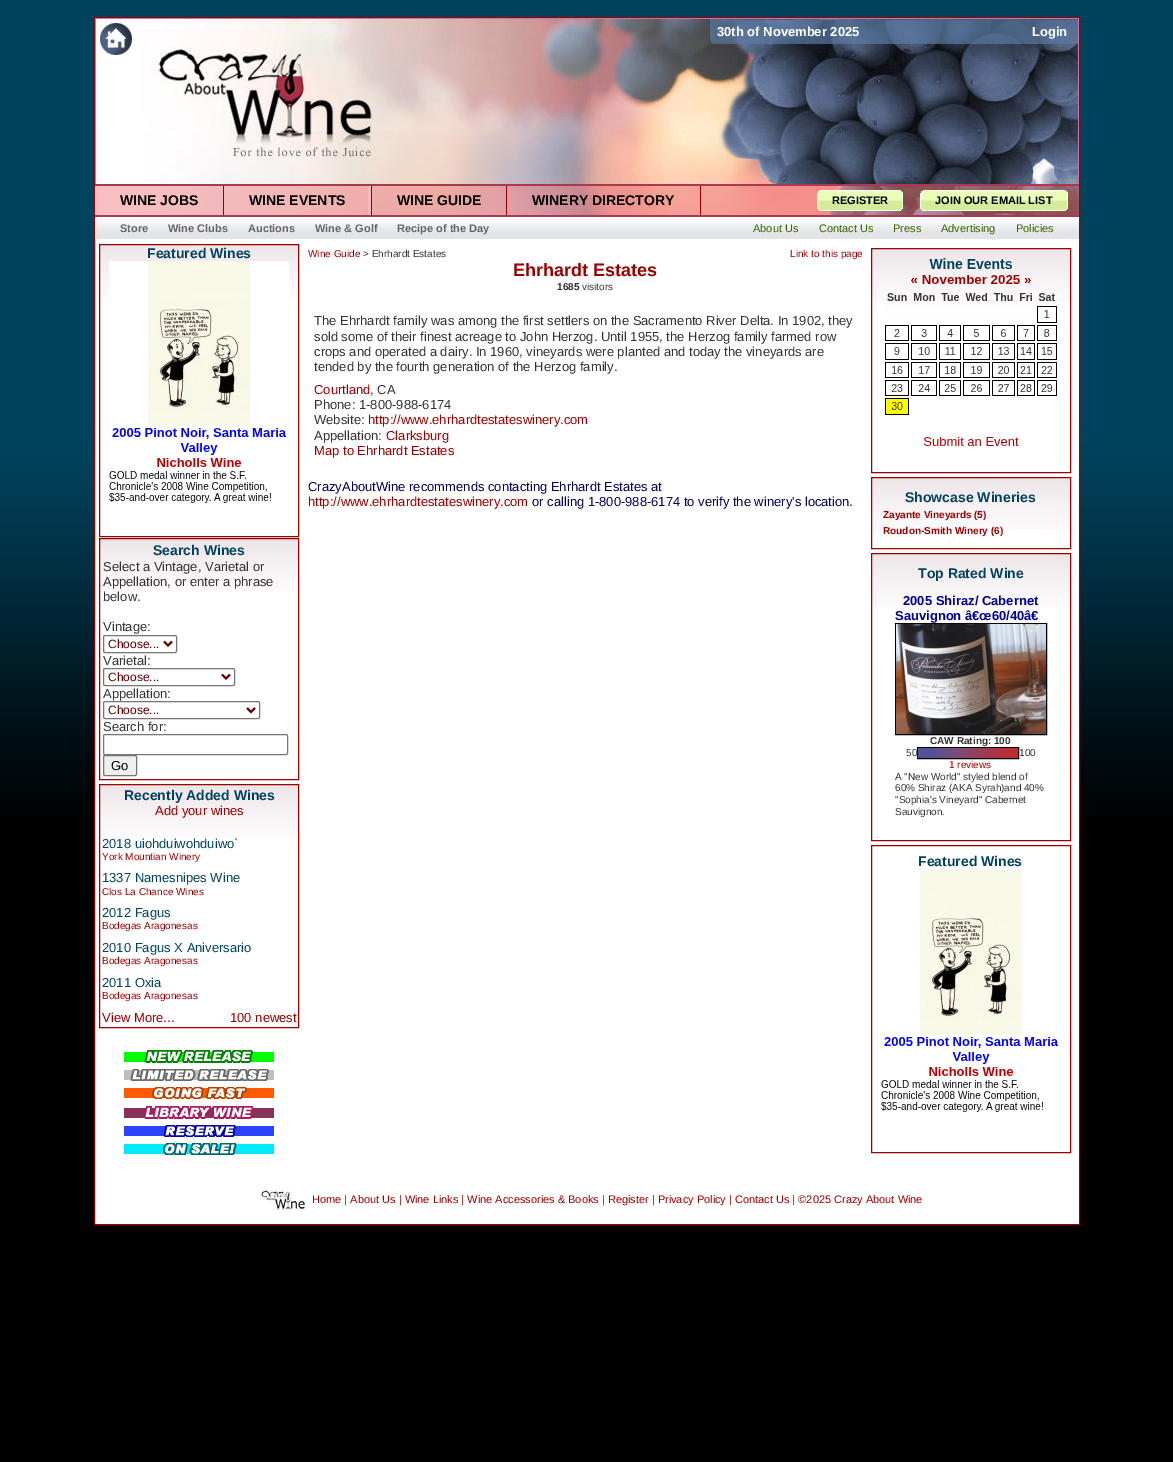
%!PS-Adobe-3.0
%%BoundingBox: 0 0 1173 1462
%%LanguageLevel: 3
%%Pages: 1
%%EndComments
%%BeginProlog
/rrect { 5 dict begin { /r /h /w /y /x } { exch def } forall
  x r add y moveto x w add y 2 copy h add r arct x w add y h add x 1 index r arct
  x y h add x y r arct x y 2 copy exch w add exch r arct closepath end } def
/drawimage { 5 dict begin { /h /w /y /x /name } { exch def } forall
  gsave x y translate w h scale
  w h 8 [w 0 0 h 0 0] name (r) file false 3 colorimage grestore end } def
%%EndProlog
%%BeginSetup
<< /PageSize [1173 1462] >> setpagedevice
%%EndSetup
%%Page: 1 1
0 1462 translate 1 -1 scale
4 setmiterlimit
0 setgray
0 0 1173 1462 rectfill
(images/1.raw) 0 0 1173 817 drawimage
1 setgray
95 217 984 1007 rectfill
0.6 0 0 setrgbcolor
94.5 17.5 985 1207 rectstroke
(images/2.raw) 95 18 615 26 drawimage
(images/3.raw) 710 18 369 26 drawimage
(images/4.raw) 95 44 984 140 drawimage
0.655 0.231 0.302 setrgbcolor
95 184 984 2 rectfill
(images/5.raw) 95 186 128 29 drawimage
0.6 0 0 setrgbcolor
223 186 1 29 rectfill
(images/6.raw) 224 186 147 29 drawimage
371 186 1 29 rectfill
(images/7.raw) 372 186 134 29 drawimage
506 186 1 29 rectfill
(images/8.raw) 507 186 193 29 drawimage
700 186 1 29 rectfill
(images/9.raw) 701 186 378 29 drawimage
(images/10.raw) 817 190 5 21 drawimage
(images/11.raw) 822 190 76 21 drawimage
(images/12.raw) 898 190 5 21 drawimage
(images/13.raw) 920 190 5 21 drawimage
(images/14.raw) 925 190 138 21 drawimage
(images/15.raw) 1063 190 5 21 drawimage
0.655 0.231 0.302 setrgbcolor
95 215 984 2 rectfill
(images/16.raw) 95 218 538 21 drawimage
(images/17.raw) 633 218 446 21 drawimage
(images/18.raw) 100 245 198 53 drawimage
0.6 0 0 setrgbcolor
99.5 244.5 199 292 rectstroke
(images/19.raw) 109 261 180 242 drawimage
(images/18.raw) 100 539 198 53 drawimage
99.5 538.5 199 241 rectstroke
0.463 setgray
103.5 635.5 73 17 1.5 rrect stroke
0.4 0 0 setrgbcolor
2 setlinewidth
newpath 164 641.5 moveto 168 645.5 lineto 172 641.5 lineto stroke
0.463 setgray
1 setlinewidth
103.5 668.5 131 17 1.5 rrect stroke
0.4 0 0 setrgbcolor
2 setlinewidth
newpath 222 674.5 moveto 226 678.5 lineto 230 674.5 lineto stroke
0.463 setgray
1 setlinewidth
103.5 701.5 156 17 1.5 rrect stroke
0.4 0 0 setrgbcolor
2 setlinewidth
newpath 247 708 moveto 251 712 lineto 255 708 lineto stroke
0.463 setgray
1 setlinewidth
103.5 734.5 184 20 1.5 rrect stroke
0.937 setgray
103.5 755.5 33 20 1.5 rrect gsave fill grestore
0.463 setgray
stroke
(images/18.raw) 100 785 198 53 drawimage
0.6 0 0 setrgbcolor
99.5 784.5 199 243 rectstroke
(images/20.raw) 124 1050 150 13 drawimage
(images/21.raw) 124 1069 150 12 drawimage
(images/22.raw) 124 1087 150 12 drawimage
(images/23.raw) 124 1106 150 13 drawimage
(images/24.raw) 124 1125 150 12 drawimage
(images/25.raw) 124 1143 150 12 drawimage
(images/18.raw) 872 249 198 53 drawimage
871.5 248.5 199 224 rectstroke
(images/26.raw) 885 258 172 188 drawimage
(images/18.raw) 872 478 198 53 drawimage
871.5 477.5 199 71 rectstroke
(images/18.raw) 872 554 198 53 drawimage
871.5 553.5 199 287 rectstroke
0 setgray
895.5 623.5 151 111 rectstroke
(images/27.raw) 896 624 150 110 drawimage
917.5 747.5 101 11 rectstroke
(images/28.raw) 918 748 100 10 drawimage
0.6 0 0 setrgbcolor
871.5 845.5 199 307 rectstroke
(images/29.raw) 881 870 178 242 drawimage
(images/30.raw) 261 1190 44 20 drawimage
/LiberationSans-Bold [13 0 0 -13 0 0] selectfont
1 setgray
717 36 moveto (30th of November 2025) show
1032 36 moveto (Login) show
/LiberationSans-Bold [14 0 0 -14 0 0] selectfont
0 setgray
120 205 moveto (WINE JOBS) show
249 205 moveto (WINE EVENTS) show
397 205 moveto (WINE GUIDE) show
532 205 moveto (WINERY DIRECTORY) show
/LiberationSans-Bold [11 0 0 -11 0 0] selectfont
832 204 moveto (REGISTER) show
935 204 moveto (JOIN OUR EMAIL LIST) show
0.4 setgray
120 232 moveto (Store) show
168 232 moveto (Wine Clubs) show
248 232 moveto (Auctions) show
315 232 moveto (Wine & Golf) show
397 232 moveto (Recipe of the Day) show
/LiberationSans-Regular [11 0 0 -11 0 0] selectfont
0.2 0.4 0 setrgbcolor
753 232 moveto (About Us) show
819 232 moveto (Contact Us) show
893 232 moveto (Press) show
941 232 moveto (Advertising) show
1016 232 moveto (Policies) show
/LiberationSans-Bold [14 0 0 -14 0 0] selectfont
0.004 0.263 0.369 setrgbcolor
147 258 moveto (Featured Wines) show
153 555 moveto (Search Wines) show
/LiberationSans-Regular [13 0 0 -13 0 0] selectfont
0.2 setgray
103 571 moveto (Select a Vintage, Varietal or) show
103 586 moveto (Appellation, or enter a phrase) show
103 601 moveto (below.) show
103 631 moveto (Vintage:) show
/LiberationSans-Regular [12 0 0 -12 0 0] selectfont
0.4 0 0 setrgbcolor
108 648 moveto (Choose...) show
/LiberationSans-Regular [13 0 0 -13 0 0] selectfont
0.2 setgray
103 665 moveto (Varietal:) show
/LiberationSans-Regular [12 0 0 -12 0 0] selectfont
0.4 0 0 setrgbcolor
108 681 moveto (Choose...) show
/LiberationSans-Regular [13 0 0 -13 0 0] selectfont
0.2 setgray
103 698 moveto (Appellation:) show
/LiberationSans-Regular [12 0 0 -12 0 0] selectfont
0.4 0 0 setrgbcolor
108 714 moveto (Choose...) show
/LiberationSans-Regular [13 0 0 -13 0 0] selectfont
0.2 setgray
103 731 moveto (Search for:) show
0 setgray
111 770 moveto (Go) show
/LiberationSans-Bold [14 0 0 -14 0 0] selectfont
0.004 0.263 0.369 setrgbcolor
124 800 moveto (Recently Added Wines) show
/LiberationSans-Regular [13 0 0 -13 0 0] selectfont
0.6 0 0 setrgbcolor
155 815 moveto (Add your wines) show
0.004 0.263 0.369 setrgbcolor
102 848 moveto (2018 uiohduiwohduiwo`) show
/LiberationSans-Regular [10 0 0 -10 0 0] selectfont
0.6 0 0 setrgbcolor
102 860 moveto (York Mountian Winery) show
/LiberationSans-Regular [13 0 0 -13 0 0] selectfont
0.004 0.263 0.369 setrgbcolor
102 882 moveto (1337 Namesnipes Wine) show
/LiberationSans-Regular [10 0 0 -10 0 0] selectfont
0.6 0 0 setrgbcolor
102 895 moveto (Clos La Chance Wines) show
/LiberationSans-Regular [13 0 0 -13 0 0] selectfont
0.004 0.263 0.369 setrgbcolor
102 917 moveto (2012 Fagus) show
/LiberationSans-Regular [10 0 0 -10 0 0] selectfont
0.6 0 0 setrgbcolor
102 929 moveto (Bodegas Aragonesas) show
/LiberationSans-Regular [13 0 0 -13 0 0] selectfont
0.004 0.263 0.369 setrgbcolor
102 952 moveto (2010 Fagus X Aniversario) show
/LiberationSans-Regular [10 0 0 -10 0 0] selectfont
0.6 0 0 setrgbcolor
102 964 moveto (Bodegas Aragonesas) show
/LiberationSans-Regular [13 0 0 -13 0 0] selectfont
0.004 0.263 0.369 setrgbcolor
102 987 moveto (2011 Oxia) show
/LiberationSans-Regular [10 0 0 -10 0 0] selectfont
0.6 0 0 setrgbcolor
102 999 moveto (Bodegas Aragonesas) show
/LiberationSans-Regular [13 0 0 -13 0 0] selectfont
102 1022 moveto (View More...) show
230 1022 moveto (100 newest) show
/LiberationSans-Regular [10 0 0 -10 0 0] selectfont
308 257 moveto (Wine Guide) show
0.2 setgray
363 257 moveto (> Ehrhardt Estates) show
0.6 0 0 setrgbcolor
790 257 moveto (Link to this page) show
/LiberationSans-Bold [18 0 0 -18 0 0] selectfont
513 276 moveto (Ehrhardt Estates) show
/LiberationSans-Bold [10 0 0 -10 0 0] selectfont
0.2 setgray
557 290 moveto (1685) show
/LiberationSans-Regular [10 0 0 -10 0 0] selectfont
582 290 moveto (visitors) show
/LiberationSans-Regular [13 0 0 -13 0 0] selectfont
314 325 moveto (The Ehrhardt family was among the first settlers on the Sacramento River Delta. In 1902, they) show
314 341 moveto (sold some of their finest acreage to John Herzog. Until 1955, the Herzog family farmed row) show
314 356 moveto (crops and operated a dairy. In 1960, vineyards were planted and today the vineyards are) show
314 371 moveto (tended by the fourth generation of the Herzog family.) show
0.6 0 0 setrgbcolor
314 394 moveto (Courtland) show
0.2 setgray
370 394 moveto (, CA) show
314 409 moveto (Phone: 1-800-988-6174) show
314 424 moveto (Website:) show
0.6 0 0 setrgbcolor
368 424 moveto (http://www.ehrhardtestateswinery.com) show
0.2 setgray
314 440 moveto (Appellation:) show
0.6 0 0 setrgbcolor
386 440 moveto (Clarksburg) show
314 455 moveto (Map to Ehrhardt Estates) show
0 0 0.333 setrgbcolor
308 491 moveto (CrazyAboutWine recommends contacting Ehrhardt Estates at) show
0.6 0 0 setrgbcolor
308 506 moveto (http://www.ehrhardtestateswinery.com) show
0 0 0.333 setrgbcolor
532 506 moveto (or calling 1-800-988-6174 to verify the winery's location.) show
/LiberationSans-Bold [14 0 0 -14 0 0] selectfont
0.004 0.263 0.369 setrgbcolor
905 502 moveto (Showcase Wineries) show
/LiberationSans-Bold [10 0 0 -10 0 0] selectfont
0.6 0 0 setrgbcolor
883 518 moveto (Zayante Vineyards \(5\)) show
883 534 moveto (Roudon-Smith Winery \(6\)) show
/LiberationSans-Bold [14 0 0 -14 0 0] selectfont
0.004 0.263 0.369 setrgbcolor
918 578 moveto (Top Rated Wine) show
/LiberationSans-Bold [13 0 0 -13 0 0] selectfont
0 0 0.6 setrgbcolor
903 605 moveto (2005 Shiraz/ Cabernet) show
895 620 moveto (Sauvignon â€œ60/40â€) show
/LiberationSans-Bold [10 0 0 -10 0 0] selectfont
0.2 setgray
930 744 moveto (CAW Rating: 100) show
/LiberationSans-Regular [10 0 0 -10 0 0] selectfont
906 756 moveto (50) show
1019 756 moveto (100) show
0.6 0 0 setrgbcolor
949 768 moveto (1 reviews) show
0.2 setgray
895 780 moveto (A "New World" styled blend of) show
895 791 moveto (60% Shiraz \(AKA Syrah\)and 40%) show
895 803 moveto ("Sophia's Vineyard" Cabernet) show
895 815 moveto (Sauvignon.) show
/LiberationSans-Bold [14 0 0 -14 0 0] selectfont
0.004 0.263 0.369 setrgbcolor
918 866 moveto (Featured Wines) show
/LiberationSans-Regular [11 0 0 -11 0 0] selectfont
0.6 0 0 setrgbcolor
312 1203 moveto (Home | About Us | Wine Links | Wine Accessories & Books | Register | Privacy Policy | Contact Us | ©2025 Crazy About Wine) show
showpage
%%EOF
